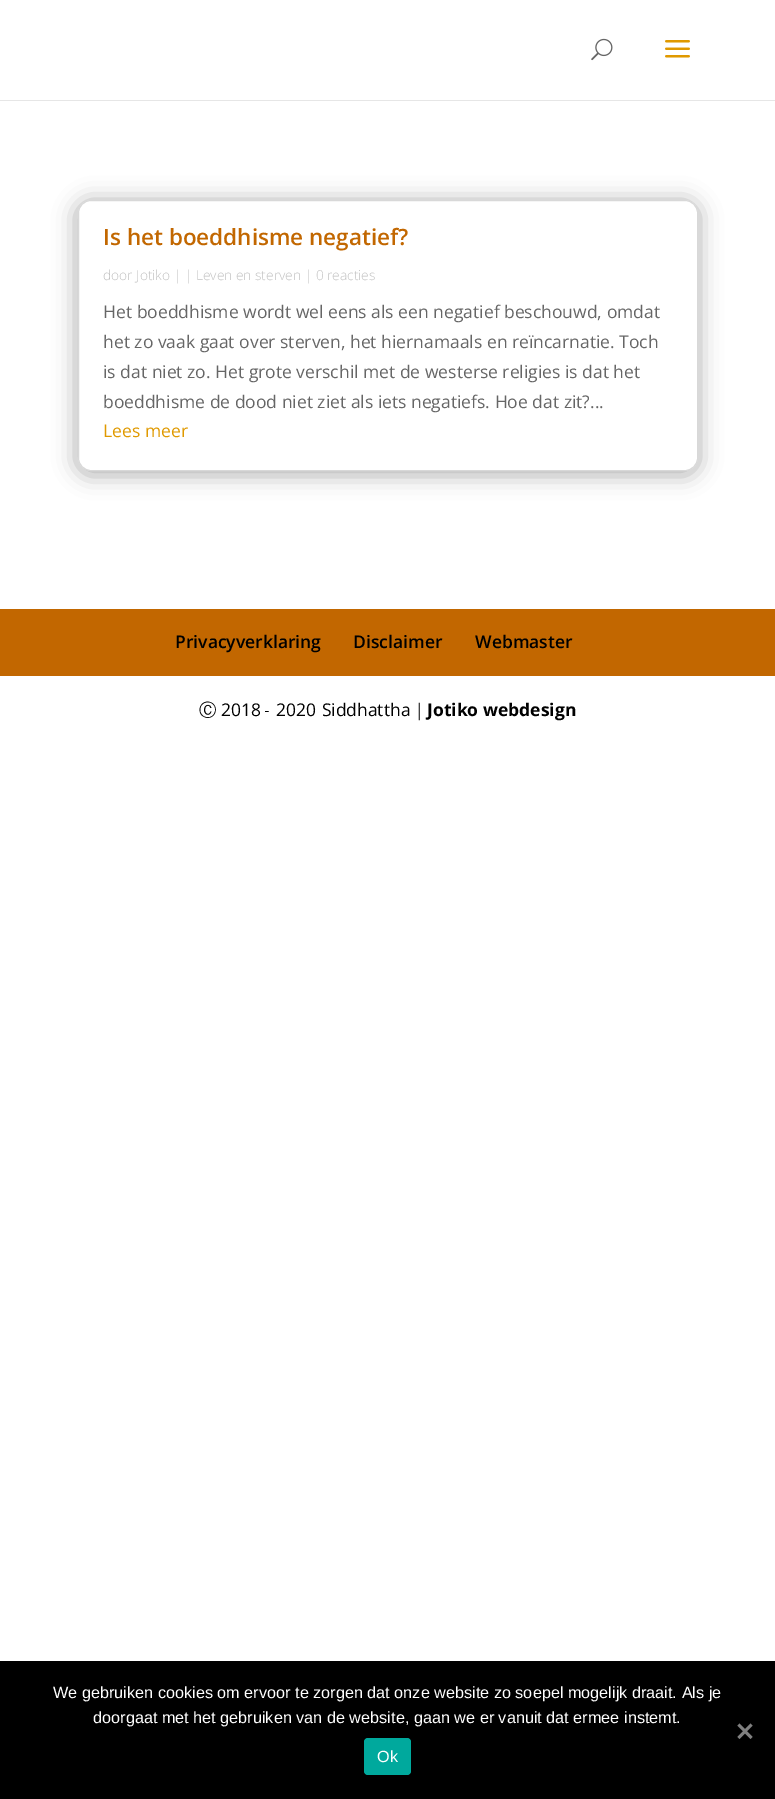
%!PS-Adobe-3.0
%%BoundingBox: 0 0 775 1799
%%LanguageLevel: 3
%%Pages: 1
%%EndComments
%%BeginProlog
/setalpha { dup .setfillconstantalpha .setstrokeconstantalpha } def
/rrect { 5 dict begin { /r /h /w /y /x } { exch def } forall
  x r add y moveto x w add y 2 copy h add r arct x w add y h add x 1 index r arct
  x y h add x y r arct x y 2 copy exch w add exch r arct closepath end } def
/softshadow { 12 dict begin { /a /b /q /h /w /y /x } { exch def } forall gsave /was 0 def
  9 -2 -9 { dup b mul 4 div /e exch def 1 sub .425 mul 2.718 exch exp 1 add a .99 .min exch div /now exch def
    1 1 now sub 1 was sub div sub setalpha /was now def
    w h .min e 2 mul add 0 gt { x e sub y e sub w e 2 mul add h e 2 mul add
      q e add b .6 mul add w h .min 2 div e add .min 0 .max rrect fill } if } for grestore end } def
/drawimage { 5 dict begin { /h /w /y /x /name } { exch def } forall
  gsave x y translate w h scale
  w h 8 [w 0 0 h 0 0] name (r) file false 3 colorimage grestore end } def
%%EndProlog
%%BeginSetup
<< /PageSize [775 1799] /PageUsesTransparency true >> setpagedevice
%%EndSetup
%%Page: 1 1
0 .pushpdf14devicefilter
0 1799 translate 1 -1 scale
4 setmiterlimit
1 setgray
0 0 775 1799 rectfill
0.902 setgray
0 100 775 1 rectfill
(images/1.raw) 591 38 22 23 drawimage
(images/2.raw) 665 40 25 18 drawimage
0 setgray
75 200 625 276 15 11 0.3 softshadow
1 setgray
78.5 200.5 619 270 12.5 rrect gsave fill grestore
0.847 setgray
stroke
0.761 0.404 0 setrgbcolor
0 609 775 67 rectfill
0 setgray
0 1661 775 138 rectfill
0.502 setgray
newpath 750.5 1723.5 moveto 752.5 1725.5 lineto 739.5 1739 lineto 737.5 1737 lineto closepath fill
newpath 737.5 1725.5 moveto 739.5 1723.5 lineto 752.5 1737 lineto 750.5 1739 lineto closepath fill
0 0.663 0.616 setrgbcolor
364 1738 47 37 4 rrect fill
/OpenSans-SemiBold [22.5 0 0 -22.5 0 0] selectfont
0.761 0.404 0 setrgbcolor
103 245 moveto (Is het boeddhisme negatief?) show
/OpenSans-Light [13.75 0 0 -13.75 0 0] selectfont
0.757 setgray
103 280 moveto (door Jotiko | | Leven en sterven | 0 reacties) show
/OpenSans-Regular [17.5 0 0 -17.5 0 0] selectfont
0.4 setgray
103 318 moveto (Het boeddhisme wordt wel eens als een negatief beschouwd, omdat) show
103 348 moveto (het zo vaak gaat over sterven, het hiernamaals en reïncarnatie. Toch) show
103 378 moveto (is dat niet zo. Het grote verschil met de westerse religies is dat het) show
103 408 moveto (boeddhisme de dood niet ziet als iets negatiefs. Hoe dat zit?...) show
0.878 0.6 0 setrgbcolor
103 437 moveto (Lees meer) show
/OpenSans-SemiBold [17.5 0 0 -17.5 0 0] selectfont
0 setgray
175 648 moveto (Privacyverklaring) show
353 648 moveto (Disclaimer) show
475 648 moveto (Webmaster) show
/WenQuanYiZenHei-Medium [17.5 0 0 -17.5 0 0] selectfont
199 716 moveto (Ⓒ) show
/OpenSans-Regular [17.5 0 0 -17.5 0 0] selectfont
221 716 moveto (2018) show
/WenQuanYiZenHei-Medium [17.5 0 0 -17.5 0 0] selectfont
265 716 moveto (-) show
/OpenSans-Regular [17.5 0 0 -17.5 0 0] selectfont
276 716 moveto 1 0 32 (2020 Siddhattha) widthshow
/WenQuanYiZenHei-Medium [17.5 0 0 -17.5 0 0] selectfont
417 716 moveto (|) show
/OpenSans-Bold [17.5 0 0 -17.5 0 0] selectfont
427 716 moveto (Jotiko webdesign) show
/LiberationSans-Regular [16.25 0 0 -16.25 0 0] selectfont
1 setgray
53 1698 moveto (We gebruiken cookies om ervoor te zorgen dat onze website zo soepel mogelijk draait. Als je) show
93 1723 moveto (doorgaat met het gebruiken van de website, gaan we er vanuit dat ermee instemt.) show
377 1762 moveto (Ok) show
.poppdf14devicefilter showpage
%%EOF
